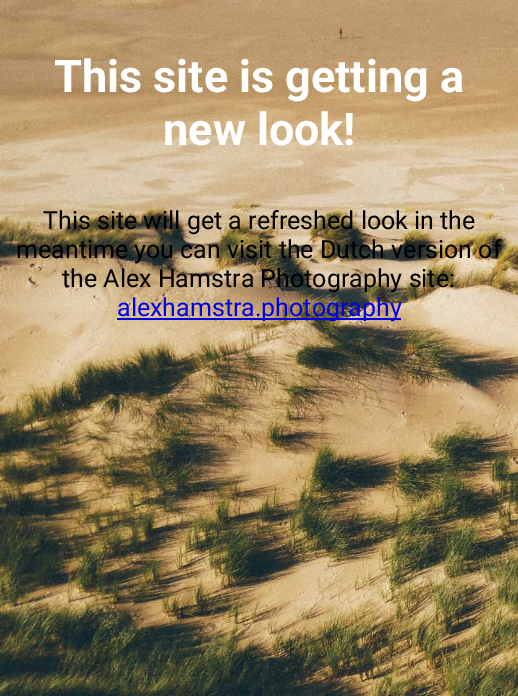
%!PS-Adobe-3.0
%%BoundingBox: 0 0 518 696
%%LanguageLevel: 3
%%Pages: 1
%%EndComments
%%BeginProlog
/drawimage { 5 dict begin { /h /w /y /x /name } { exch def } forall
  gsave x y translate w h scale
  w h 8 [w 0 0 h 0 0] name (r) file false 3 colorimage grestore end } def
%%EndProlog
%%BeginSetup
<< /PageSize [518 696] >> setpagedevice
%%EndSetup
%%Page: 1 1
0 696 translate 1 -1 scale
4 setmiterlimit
1 setgray
0 0 518 696 rectfill
(images/1.raw) 0 0 518 696 drawimage
0 0 0.933 setrgbcolor
117 318 284 2 rectfill
/Roboto-Bold [45 0 0 -45 0 0] selectfont
1 setgray
54 92 moveto (This site is getting a) show
163 145 moveto (new look!) show
/Roboto-Regular [25 0 0 -25 0 0] selectfont
0 setgray
43 229 moveto (This site will get a refreshed look in the) show
16 258 moveto (meantime you can visit the Dutch version of) show
62 287 moveto (the Alex Hamstra Photography site:) show
0 0 0.933 setrgbcolor
117 316 moveto (alexhamstra.photography) show
showpage
%%EOF
